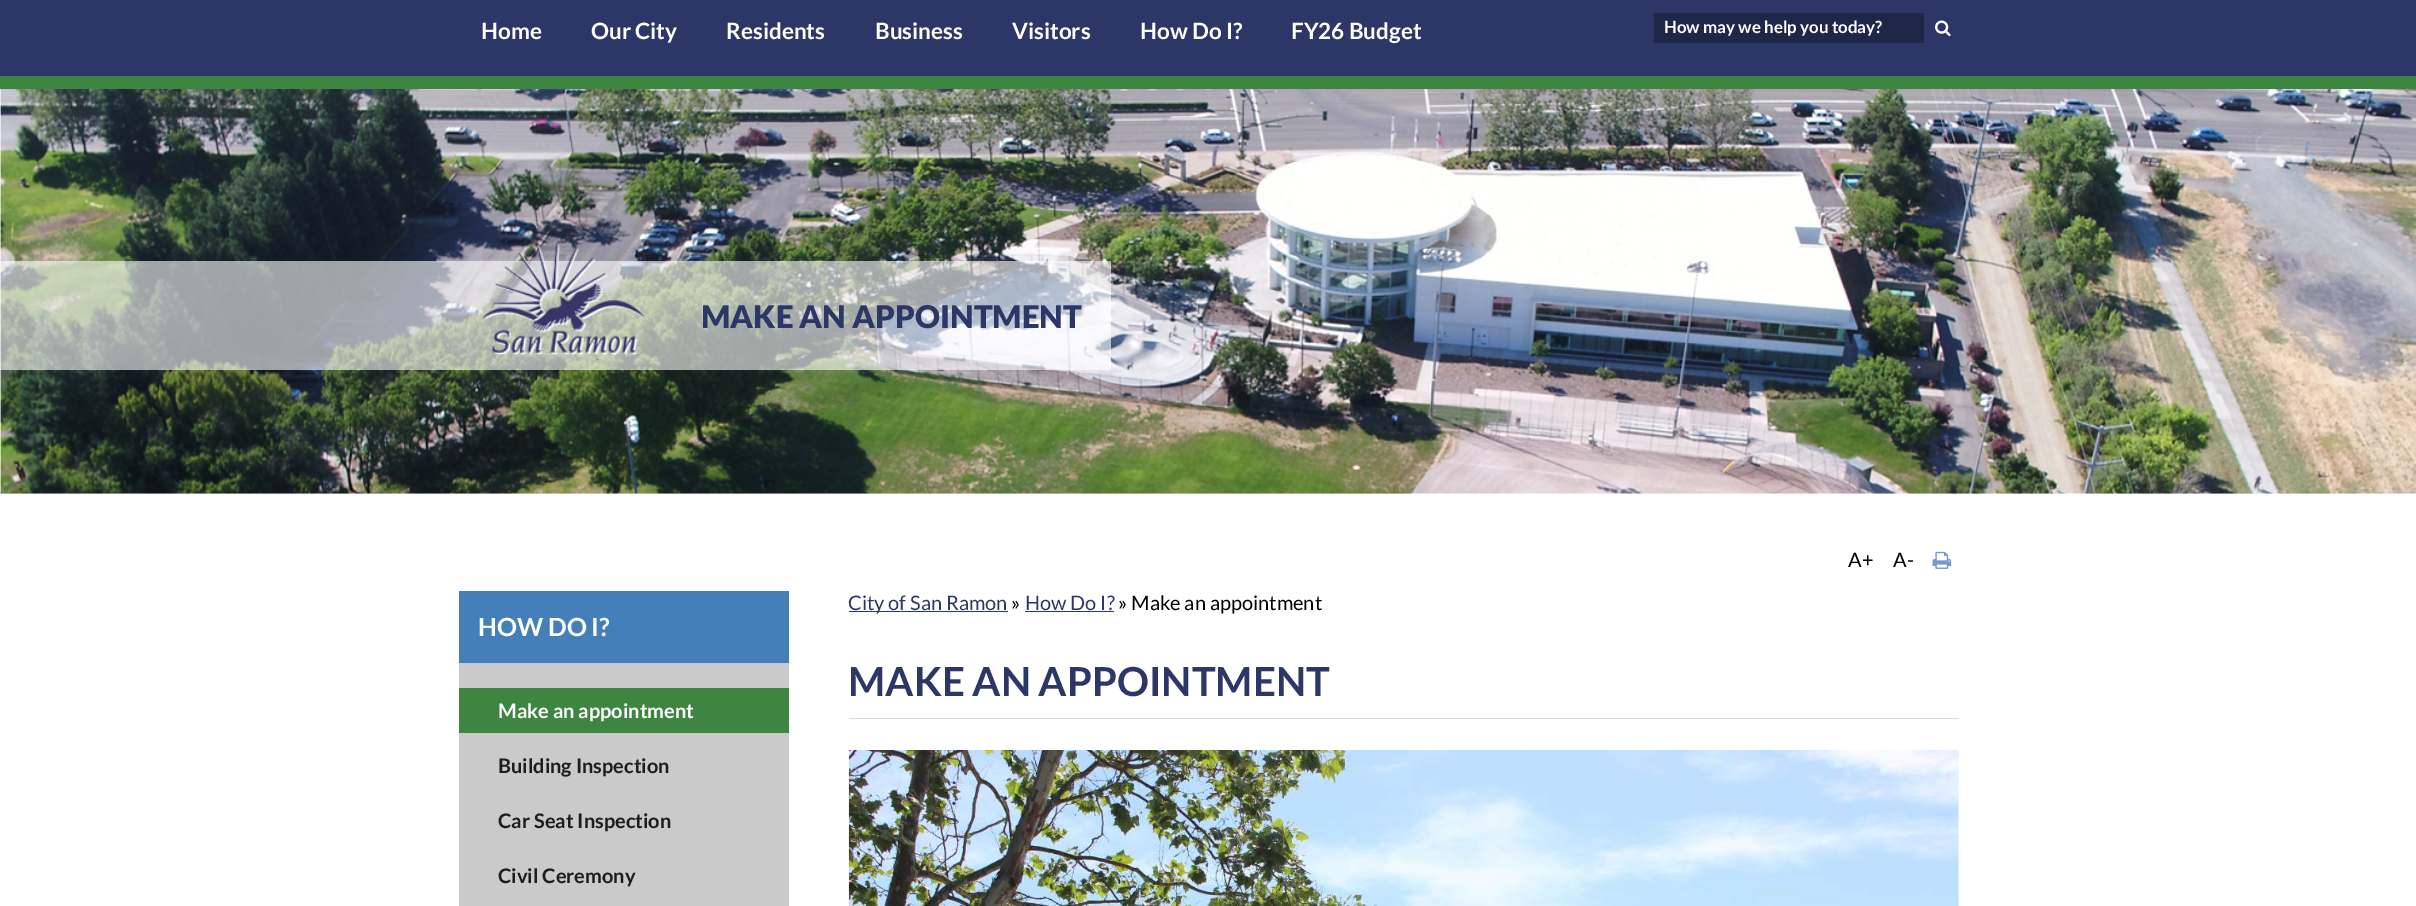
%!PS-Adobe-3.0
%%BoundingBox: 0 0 2416 906
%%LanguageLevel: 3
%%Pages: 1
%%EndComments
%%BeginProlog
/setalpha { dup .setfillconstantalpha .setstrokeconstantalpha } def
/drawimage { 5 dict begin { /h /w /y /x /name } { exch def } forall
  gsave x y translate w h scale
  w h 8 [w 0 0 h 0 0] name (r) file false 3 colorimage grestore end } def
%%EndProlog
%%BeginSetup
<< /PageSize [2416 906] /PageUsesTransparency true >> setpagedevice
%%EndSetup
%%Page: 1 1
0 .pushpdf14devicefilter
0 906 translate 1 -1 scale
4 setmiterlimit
1 setgray
0 0 2416 906 rectfill
0.173 0.216 0.408 setrgbcolor
0 0 2416 76 rectfill
0.239 0.522 0.255 setrgbcolor
0 76 2416 13 rectfill
0.122 0.153 0.286 setrgbcolor
1654 13 270 30 rectfill
(images/1.raw) 1935 20 16 17 drawimage
(images/2.raw) 0 89 2416 405 drawimage
0.6 setalpha
1 setgray
0 261 1111 109 rectfill
1 setalpha
(images/3.raw) 482 242 163 119 drawimage
0.792 setgray
459 663 330 243 rectfill
0.271 0.498 0.725 setrgbcolor
459 591 330 72 rectfill
0.239 0.522 0.255 setrgbcolor
459 688 330 45 rectfill
(images/4.raw) 1932 551 20 18 drawimage
0.173 0.216 0.408 setrgbcolor
849 611 159 1 rectfill
1025 611 89 1 rectfill
0.835 0.843 0.882 setrgbcolor
849 718 1110 1 rectfill
(images/5.raw) 848 750 1111 156 drawimage
/Lato-Bold [22.5 0 0 -22.5 0 0] selectfont
1 setgray
481 39 moveto (Home) show
591 39 moveto (Our City) show
726 39 moveto (Residents) show
875 39 moveto (Business) show
1012 39 moveto (Visitors) show
1140 39 moveto (How Do I?) show
1291 39 moveto (FY26 Budget) show
/Lato-Bold [16.9 0 0 -16.9 0 0] selectfont
1664 33 moveto (How may we help you today?) show
/Lato-Black [31.25 0 0 -31.25 0 0] selectfont
0.173 0.216 0.408 setrgbcolor
701 328 moveto (MAKE AN APPOINTMENT) show
/Lato-Bold [25 0 0 -25 0 0] selectfont
1 setgray
478 636 moveto (HOW DO I?) show
/Lato-Bold [20 0 0 -20 0 0] selectfont
498 718 moveto (Make an appointment) show
0.118 0.11 0.114 setrgbcolor
498 773 moveto (Building Inspection) show
498 828 moveto (Car Seat Inspection) show
498 883 moveto (Civil Ceremony) show
/Lato-Regular [20 0 0 -20 0 0] selectfont
0 setgray
1848 567 moveto (A+) show
1893 567 moveto (A-) show
0.173 0.216 0.408 setrgbcolor
848 610 moveto (City of San Ramon) show
0 setgray
1011 610 moveto (») show
0.173 0.216 0.408 setrgbcolor
1025 610 moveto (How Do I?) show
0 setgray
1118 610 moveto (» Make an appointment) show
/Lato-Bold [40 0 0 -40 0 0] selectfont
0.173 0.216 0.408 setrgbcolor
848 696 moveto (MAKE AN APPOINTMENT) show
.poppdf14devicefilter showpage
%%EOF
